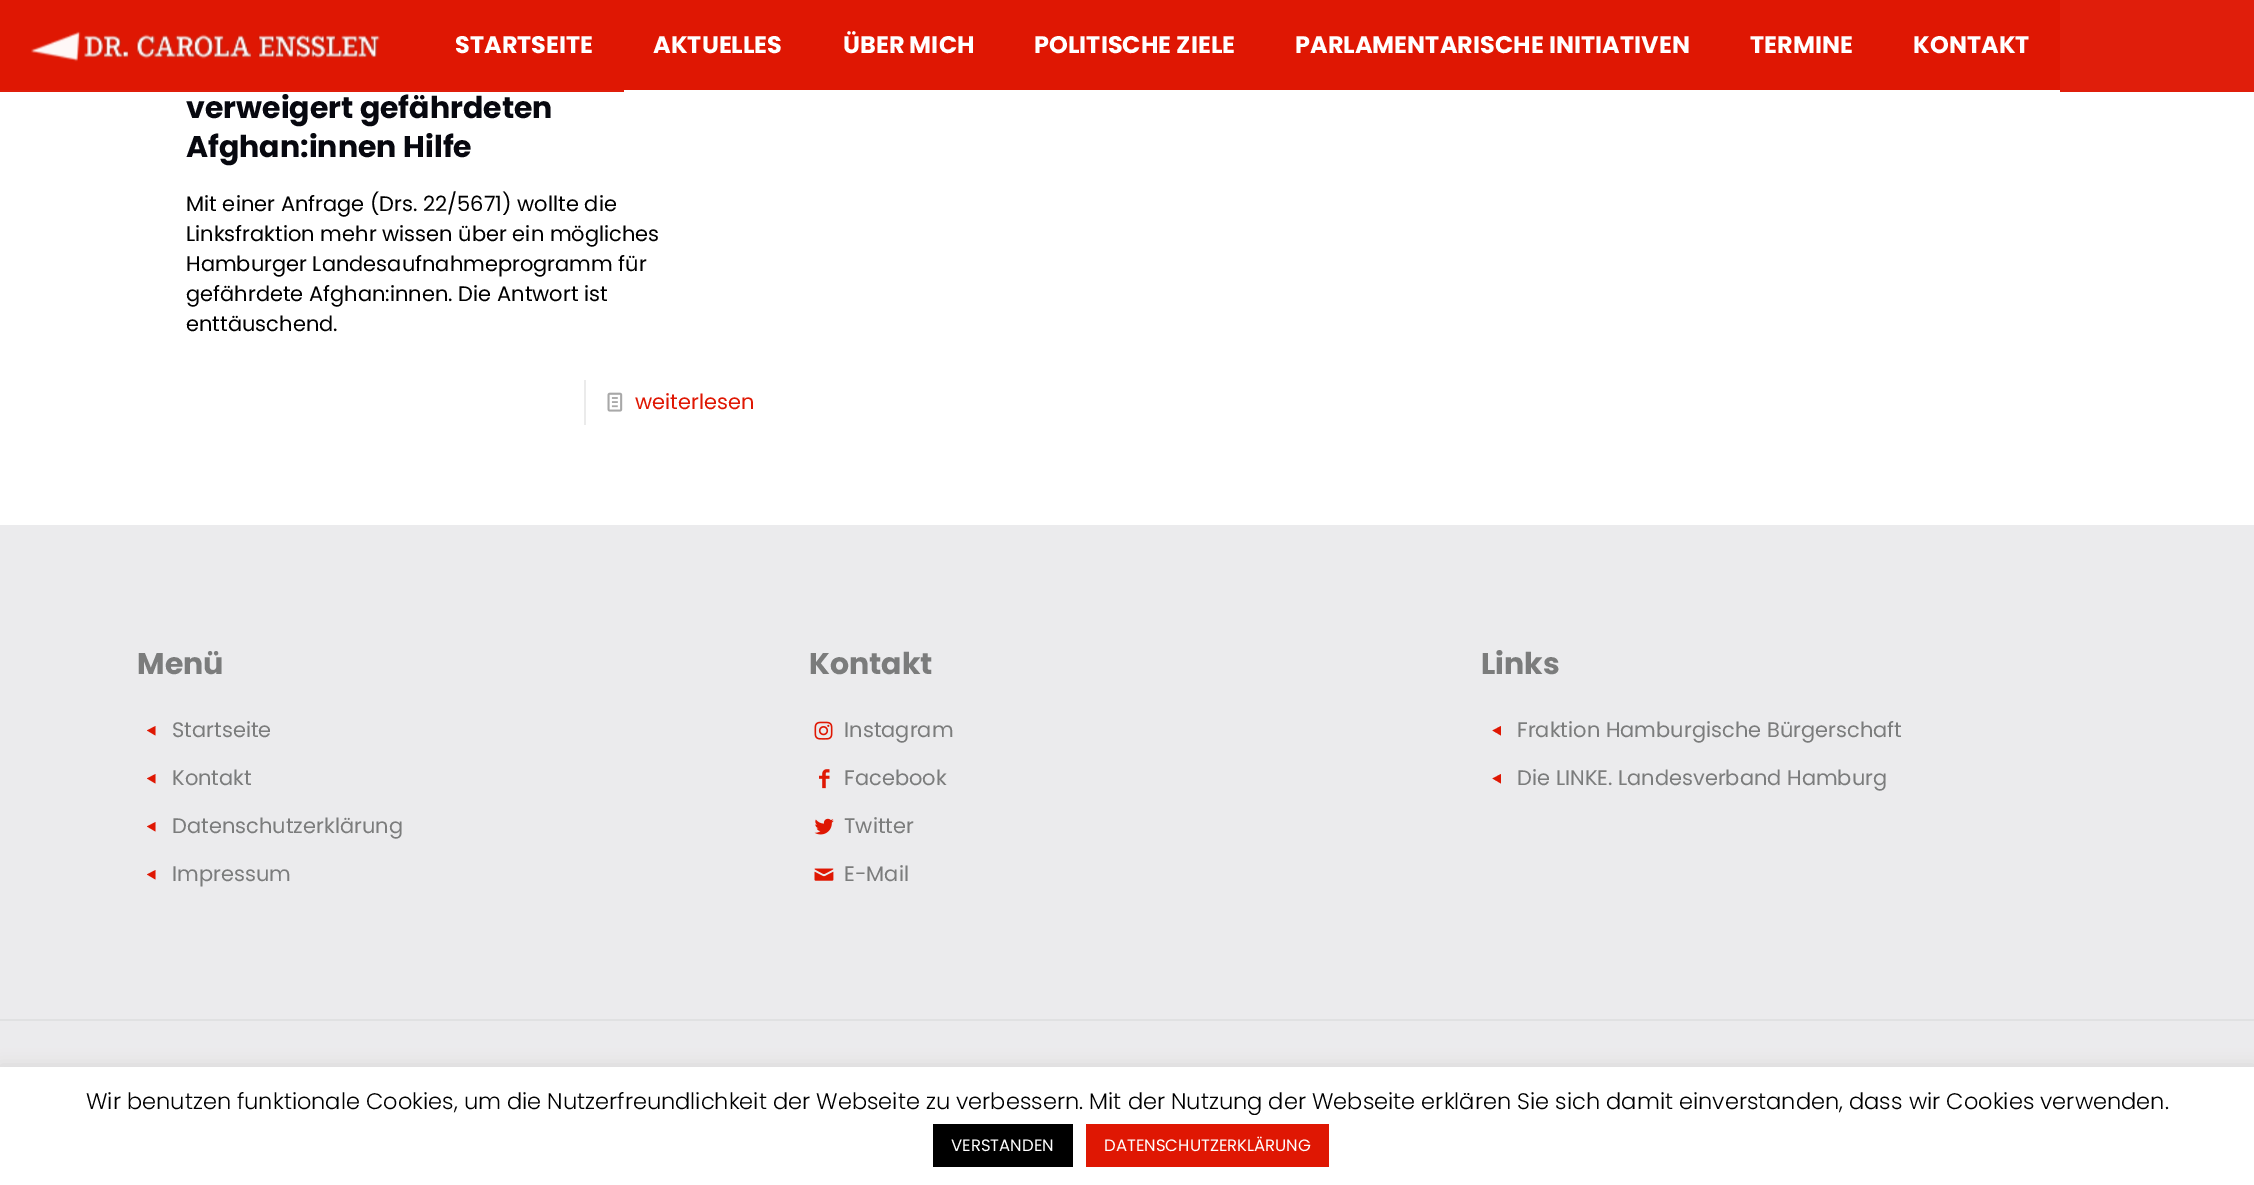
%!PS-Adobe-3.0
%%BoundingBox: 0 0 2254 1185
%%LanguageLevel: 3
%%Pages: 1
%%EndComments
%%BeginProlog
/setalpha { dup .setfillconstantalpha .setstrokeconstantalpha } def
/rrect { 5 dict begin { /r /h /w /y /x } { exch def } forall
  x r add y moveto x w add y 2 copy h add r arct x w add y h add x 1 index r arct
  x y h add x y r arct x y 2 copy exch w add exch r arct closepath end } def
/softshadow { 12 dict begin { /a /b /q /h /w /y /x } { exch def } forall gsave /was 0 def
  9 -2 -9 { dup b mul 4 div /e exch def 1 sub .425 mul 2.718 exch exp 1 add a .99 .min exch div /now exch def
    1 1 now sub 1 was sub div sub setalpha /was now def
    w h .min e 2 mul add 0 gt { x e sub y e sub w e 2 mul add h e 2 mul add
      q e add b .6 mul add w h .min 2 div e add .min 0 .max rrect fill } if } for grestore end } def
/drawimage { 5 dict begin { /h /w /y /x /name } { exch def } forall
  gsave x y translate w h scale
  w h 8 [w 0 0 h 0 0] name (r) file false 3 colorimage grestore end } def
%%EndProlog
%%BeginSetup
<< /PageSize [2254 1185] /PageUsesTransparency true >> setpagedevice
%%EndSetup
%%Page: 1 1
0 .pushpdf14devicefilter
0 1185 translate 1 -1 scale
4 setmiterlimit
1 setgray
0 0 2254 1185 rectfill
0.878 0.118 0.043 setrgbcolor
0 0 2254 92 rectfill
0.875 0.09 0.012 setrgbcolor
0 0 2060 90 rectfill
(images/2.raw) 192 13 20 20 drawimage
(images/1.raw) 31 31 349 31 drawimage
1 setgray
624 90 1436 2 rectfill
0.922 setgray
584 380 2 45 rectfill
(images/3.raw) 607 392 16 20 drawimage
0.922 0.922 0.929 setrgbcolor
0 525 2254 542 rectfill
0.875 0.09 0.012 setrgbcolor
newpath 155.5 726 moveto 155.5 735.5 lineto 147 730.5 lineto closepath fill
newpath 155.5 774 moveto 155.5 783.5 lineto 147 778.5 lineto closepath fill
newpath 155.5 822 moveto 155.5 831.5 lineto 147 826.5 lineto closepath fill
newpath 155.5 870 moveto 155.5 879.5 lineto 147 874.5 lineto closepath fill
(images/4.raw) 814 721 19 19 drawimage
(images/5.raw) 819 769 11 20 drawimage
(images/6.raw) 814 818 20 17 drawimage
(images/7.raw) 814 868 20 13 drawimage
newpath 1501 726 moveto 1501 735.5 lineto 1492.5 730.5 lineto closepath fill
newpath 1501 774 moveto 1501 783.5 lineto 1492.5 778.5 lineto closepath fill
0.878 0.882 0.886 setrgbcolor
0 1019 2254 2 rectfill
0.675 0.671 0.671 setrgbcolor
0 1065 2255 119 0 7.5 0.3 softshadow
1 setgray
0 1067 2254 118 rectfill
0 setgray
933 1124 140 43 rectfill
0.875 0.09 0.012 setrgbcolor
1086 1124 243 43 rectfill
/Poppins-Bold [24 0 0 -24 0 0] selectfont
1 setgray
455 53 moveto (STARTSEITE) show
653 53 moveto (AKTUELLES) show
843 53 moveto (ÜBER MICH) show
1034 53 moveto (POLITISCHE ZIELE) show
1295 53 moveto (PARLAMENTARISCHE INITIATIVEN) show
1750 53 moveto (TERMINE) show
1913 53 moveto (KONTAKT) show
/Poppins-Bold [30 0 0 -30 0 0] selectfont
0.027 0.031 0.059 setrgbcolor
186 118 moveto (verweigert gefährdeten) show
186 157 moveto (Afghan:innen Hilfe) show
/Poppins-Regular [21 0 0 -21 0 0] selectfont
0 setgray
186 211 moveto (Mit einer Anfrage \(Drs. 22/5671\) wollte die) show
186 241 moveto (Linksfraktion mehr wissen über ein mögliches) show
186 271 moveto (Hamburger Landesaufnahmeprogramm für) show
186 301 moveto (gefährdete Afghan:innen. Die Antwort ist) show
186 331 moveto (enttäuschend.) show
0.875 0.09 0.012 setrgbcolor
635 409 moveto (weiterlesen) show
/Poppins-Bold [30 0 0 -30 0 0] selectfont
0.482 0.486 0.486 setrgbcolor
137 674 moveto (Menü) show
/Poppins-Regular [21 0 0 -21 0 0] selectfont
172 737 moveto (Startseite) show
172 785 moveto (Kontakt) show
172 833 moveto (Datenschutzerklärung) show
172 881 moveto (Impressum) show
/Poppins-Bold [30 0 0 -30 0 0] selectfont
809 674 moveto (Kontakt) show
/Poppins-Regular [21 0 0 -21 0 0] selectfont
844 737 moveto (Instagram) show
844 785 moveto (Facebook) show
844 833 moveto (Twitter) show
844 881 moveto (E-Mail) show
/Poppins-Bold [30 0 0 -30 0 0] selectfont
1481 674 moveto (Links) show
/Poppins-Regular [21 0 0 -21 0 0] selectfont
1517 737 moveto (Fraktion Hamburgische Bürgerschaft) show
1517 785 moveto (Die LINKE. Landesverband Hamburg) show
/Poppins-Light [22.5 0 0 -22.5 0 0] selectfont
0 setgray
86 1109 moveto (Wir benutzen funktionale Cookies, um die Nutzerfreundlichkeit der Webseite zu verbessern. Mit der Nutzung der Webseite erklären Sie sich damit einverstanden, dass wir Cookies verwenden.) show
/Poppins-Regular [16.5 0 0 -16.5 0 0] selectfont
1 setgray
951 1151 moveto (VERSTANDEN) show
1104 1151 moveto (DATENSCHUTZERKLÄRUNG) show
.poppdf14devicefilter showpage
%%EOF
